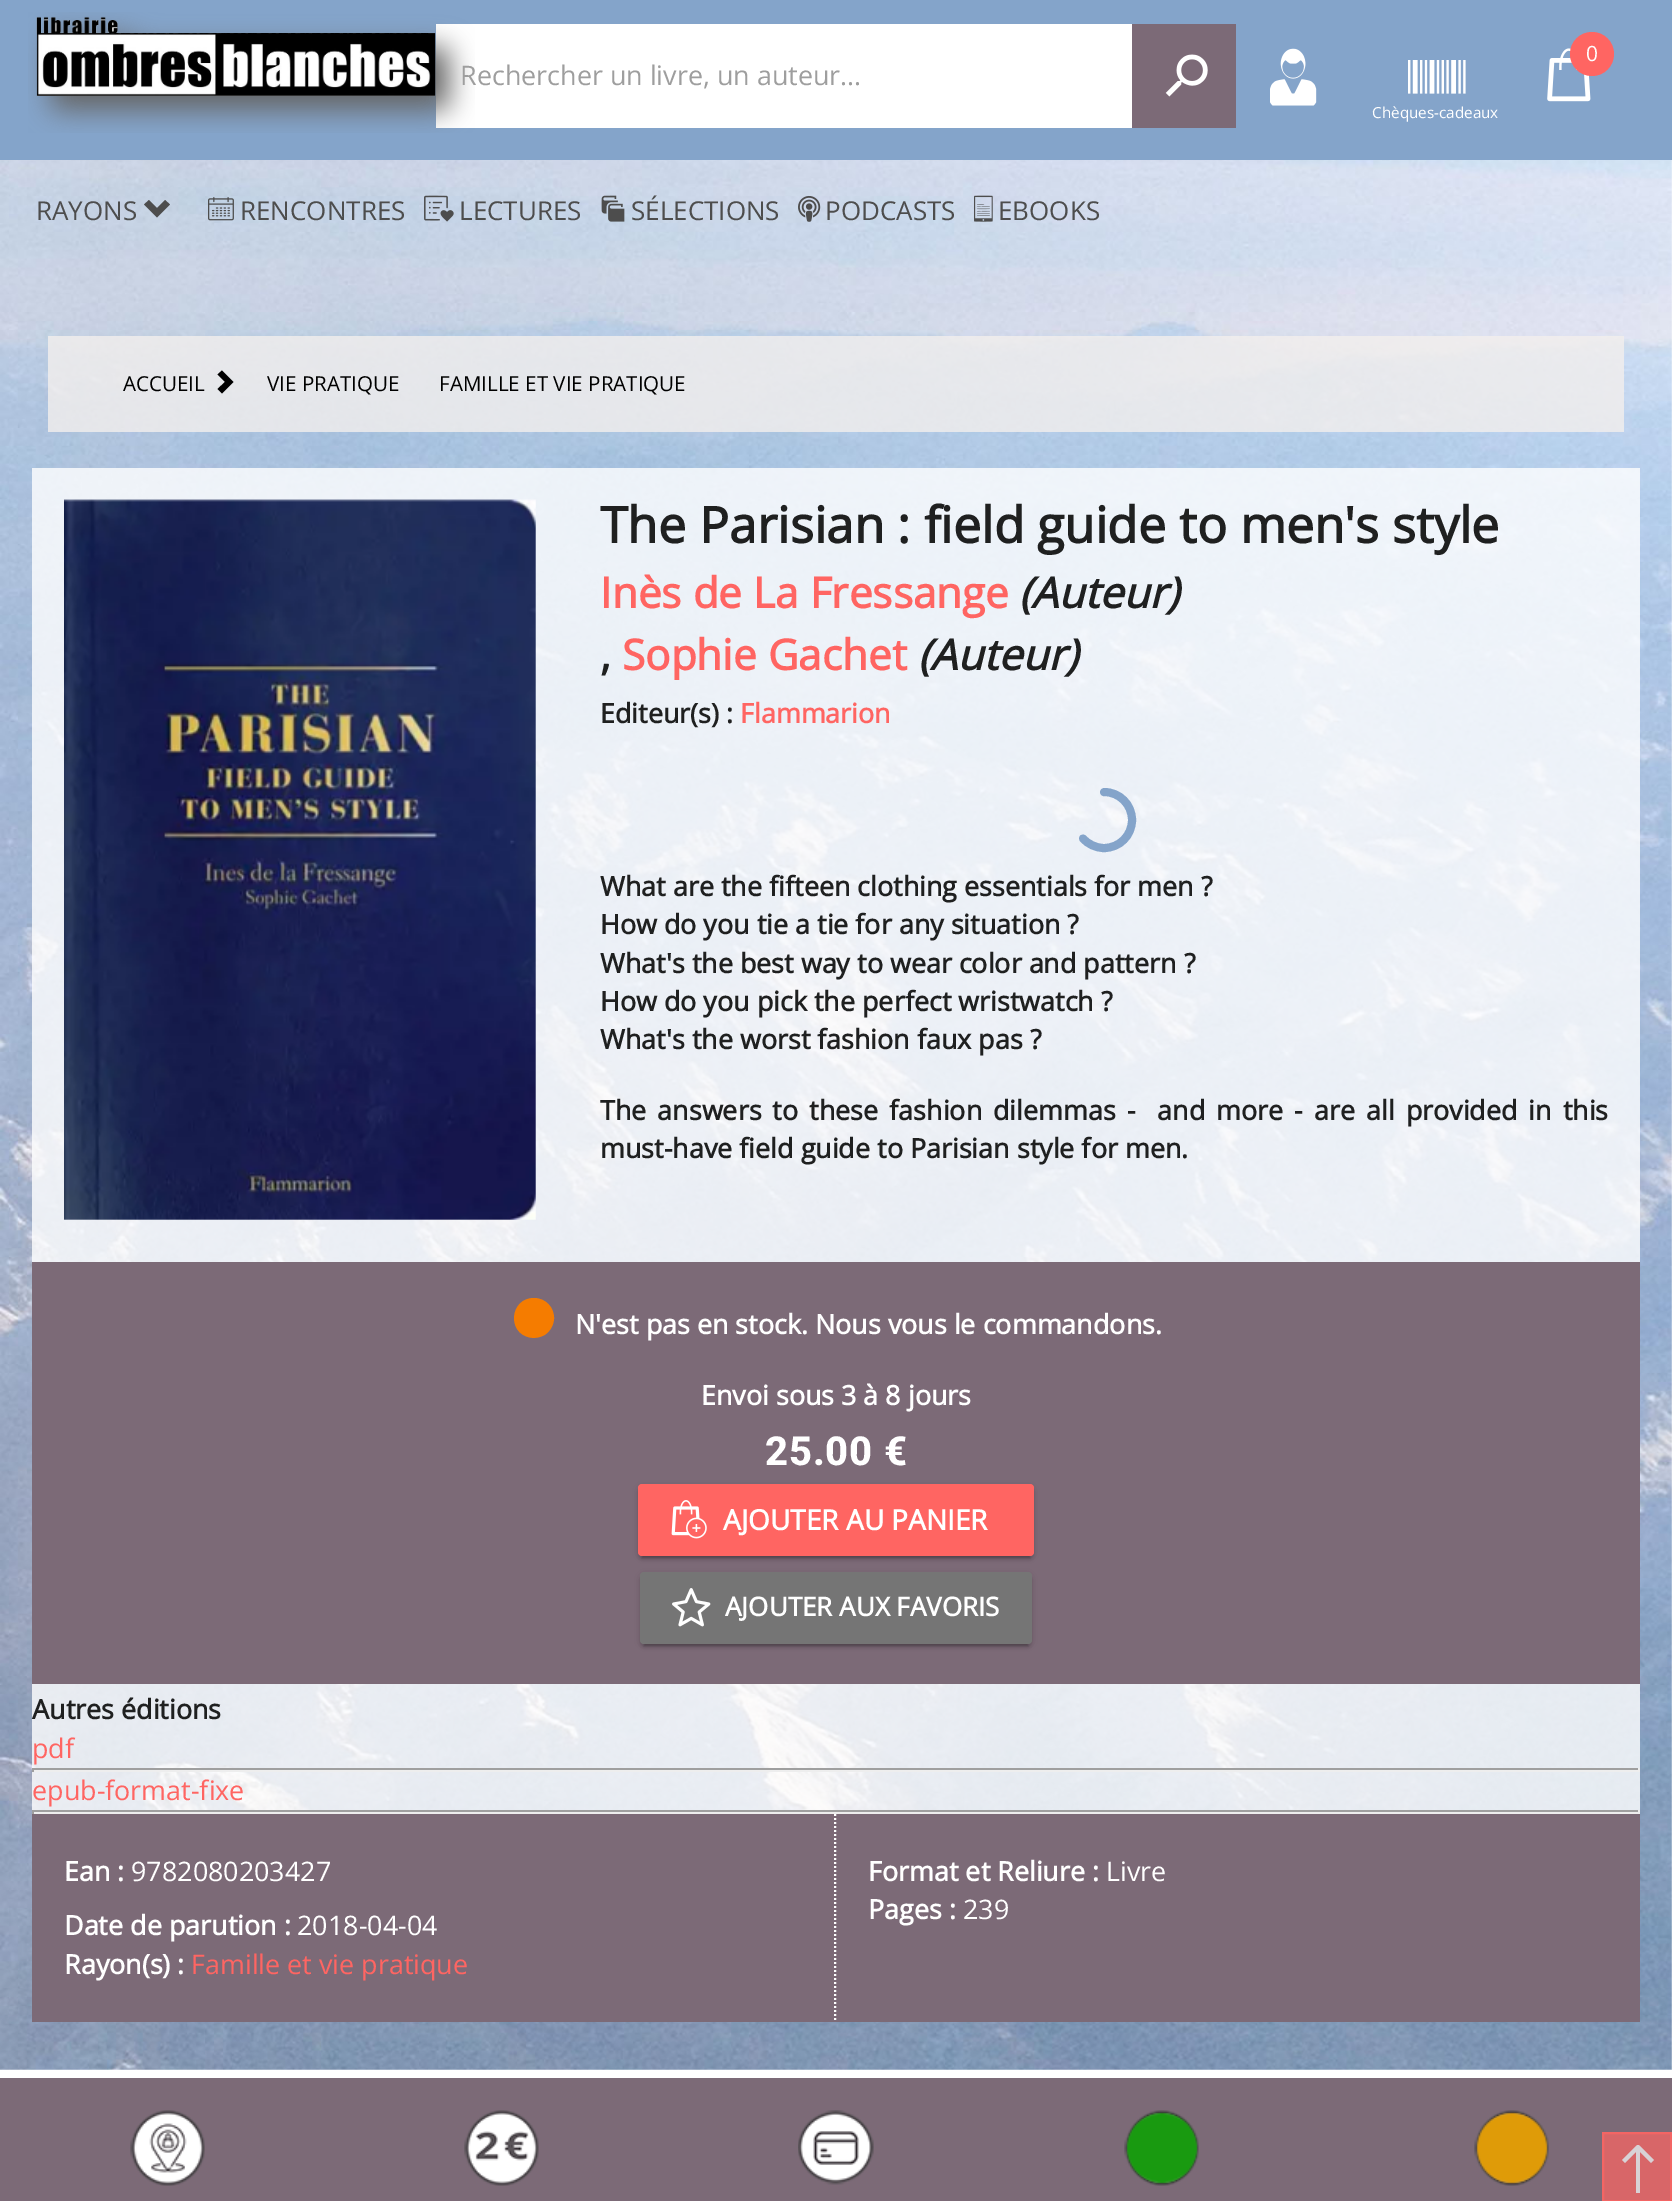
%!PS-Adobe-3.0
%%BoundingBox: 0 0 1672 2201
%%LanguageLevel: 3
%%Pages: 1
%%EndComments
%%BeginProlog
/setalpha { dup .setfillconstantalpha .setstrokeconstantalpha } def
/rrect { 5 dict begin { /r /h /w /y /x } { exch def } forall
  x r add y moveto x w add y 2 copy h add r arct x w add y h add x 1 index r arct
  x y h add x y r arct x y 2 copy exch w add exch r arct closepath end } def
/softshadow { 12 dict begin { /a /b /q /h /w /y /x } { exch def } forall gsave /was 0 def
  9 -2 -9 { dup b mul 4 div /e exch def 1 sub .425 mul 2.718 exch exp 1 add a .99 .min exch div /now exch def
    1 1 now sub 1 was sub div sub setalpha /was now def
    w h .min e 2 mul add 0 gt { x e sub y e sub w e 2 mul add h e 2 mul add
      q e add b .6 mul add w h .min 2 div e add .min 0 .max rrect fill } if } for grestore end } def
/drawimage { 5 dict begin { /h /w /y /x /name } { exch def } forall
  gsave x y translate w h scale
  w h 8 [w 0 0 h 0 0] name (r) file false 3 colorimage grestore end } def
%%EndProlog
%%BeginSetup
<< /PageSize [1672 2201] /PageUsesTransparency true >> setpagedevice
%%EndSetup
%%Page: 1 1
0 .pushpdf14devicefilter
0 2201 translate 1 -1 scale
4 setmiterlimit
0.98 setgray
0 0 1672 2201 rectfill
(images/1.raw) 0 160 1672 1910 drawimage
0.518 0.643 0.792 setrgbcolor
0 0 1672 160 rectfill
1 setgray
436 24 696 104 rectfill
(images/2.raw) 28 12 447 121 drawimage
0.486 0.416 0.467 setrgbcolor
1132 24 104 104 rectfill
(images/3.raw) 1165 54 43 43 drawimage
(images/4.raw) 1270 48 47 58 drawimage
(images/5.raw) 1547 48 44 54 drawimage
1 0.396 0.384 setrgbcolor
newpath 1592 54 22 0 360 arc closepath fill
(images/6.raw) 1408 60 58 34 drawimage
0.302 setgray
newpath 170 204.5 moveto 165 200 lineto 157 208 lineto 149 200 lineto 144 204.5 lineto 157 217.5 lineto closepath fill
(images/7.raw) 208 197 26 24 drawimage
(images/8.raw) 424 195 30 27 drawimage
(images/9.raw) 601 195 24 27 drawimage
(images/10.raw) 798 195 23 27 drawimage
(images/11.raw) 974 195 19 27 drawimage
0.8 setalpha
0.953 0.937 0.929 setrgbcolor
48 336 1576 96 rectfill
1 setalpha
0 setgray
newpath 222 370.5 moveto 217.5 374.5 lineto 225 382 lineto 217.5 389 lineto 222 393.5 lineto 233.5 382 lineto closepath fill
0.8 setalpha
1 setgray
32 468 1608 1342 rectfill
1 setalpha
(images/12.raw) 64 499 472 721 drawimage
0.518 0.643 0.792 setrgbcolor
8 setlinewidth
1 setlinecap
newpath 1104 792 moveto 1119.5 792 1132 804.5 1132 820 curveto 1132 835.5 1119.5 848 1104 848 curveto 1095.5 848 1088 844 1083 838.5 curveto stroke
0.486 0.416 0.467 setrgbcolor
32 1262 1608 422 rectfill
0.961 0.486 0 setrgbcolor
newpath 534 1298 moveto 510 1298 506.5 1333 530 1337.5 curveto 535 1338.5 540 1337.5 544.5 1335 curveto 550 1331.5 553.5 1325.5 554 1319 curveto 554.5 1307.5 545.5 1298 534 1298 curveto closepath fill
0 setgray
638 1486 396 72 4 5 0.12 softshadow
638 1488 396 72 4 2 0.14 softshadow
642 1494 388 64 0 1 0.2 softshadow
1 0.396 0.384 setrgbcolor
638 1484 396 72 4 rrect fill
(images/13.raw) 671 1500 36 39 drawimage
0 setgray
640 1574 392 72 4 5 0.12 softshadow
640 1576 392 72 4 2 0.14 softshadow
644 1582 384 64 0 1 0.2 softshadow
0.459 setgray
640 1572 392 72 4 rrect fill
(images/14.raw) 672 1588 39 39 drawimage
0.624 setgray
32 1768 1608 2 rectfill
0.933 setgray
1638 1768 2 4 rectfill
32 1770 1608 2 rectfill
0.624 setgray
32 1768 2 4 rectfill
32 1810 1608 2 rectfill
0.933 setgray
1638 1810 2 4 rectfill
32 1812 1608 2 rectfill
0.624 setgray
32 1810 2 4 rectfill
0.486 0.416 0.467 setrgbcolor
32 1814 1608 208 rectfill
1 setgray
2 setlinewidth
0 setlinecap
[2 2] 0 setdash
newpath 835 1814 moveto 835 2022 lineto stroke
0.486 0.416 0.467 setrgbcolor
0 2078 1672 123 rectfill
0.7 setalpha
1 0.396 0.384 setrgbcolor
1602 2132 70 69 rectfill
[] 0 setdash
1603 2133 68 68 rectstroke
1 setalpha
0.847 0.824 0.839 setrgbcolor
newpath 1654 2160 moveto 1642 2148 lineto 1638 2144 1638 2144 1634 2148 curveto 1622 2160 lineto 1625 2163 lineto 1636 2152 lineto 1636 2193 lineto 1640 2193 lineto 1640 2152 lineto 1651 2163 lineto closepath fill
1 setgray
0 2070 1672 8 rectfill
(images/15.raw) 130 2110 75 76 drawimage
(images/16.raw) 464 2110 75 76 drawimage
(images/17.raw) 798 2110 76 75 drawimage
(images/18.raw) 1124 2110 75 76 drawimage
(images/19.raw) 1474 2110 75 76 drawimage
/OpenSans-Regular [26.9 0 0 -26.9 0 0] selectfont
0.62 setgray
460 85 moveto (Rechercher un livre, un auteur...) show
/OpenSans-Regular [21 0 0 -21 0 0] selectfont
1 setgray
1586 61 moveto (0) show
/OpenSans-Regular [15.25 0 0 -15.25 0 0] selectfont
1372 118 moveto (Chèques-cadeaux) show
/OpenSans-Regular [26 0 0 -26 0 0] selectfont
0.302 setgray
36 220 moveto (RAYONS) show
240 220 moveto (RENCONTRES) show
459 220 moveto (LECTURES) show
631 220 moveto (SÉLECTIONS) show
825 220 moveto (PODCASTS) show
998 220 moveto (EBOOKS) show
/OpenSans-Regular [20.6 0 0 -20.6 0 0] selectfont
0 setgray
123 391 moveto (ACCUEIL) show
267 391 moveto (VIE PRATIQUE) show
439 391 moveto (FAMILLE ET VIE PRATIQUE) show
/OpenSans-Bold [49.9 0 0 -49.9 0 0] selectfont
0.122 0.125 0.125 setrgbcolor
600 543 moveto (The Parisian : field guide to men's style) show
/OpenSans-Bold [42.25 0 0 -42.25 0 0] selectfont
1 0.396 0.384 setrgbcolor
600 608 moveto (Inès de La Fressange) show
/OpenSans-BoldItalic [42.25 0 0 -42.25 0 0] selectfont
0.122 0.125 0.125 setrgbcolor
1019 608 moveto (\(Auteur\)) show
/OpenSans-Bold [42.25 0 0 -42.25 0 0] selectfont
600 670 moveto (,) show
1 0.396 0.384 setrgbcolor
622 670 moveto (Sophie Gachet) show
/OpenSans-BoldItalic [42.25 0 0 -42.25 0 0] selectfont
0.122 0.125 0.125 setrgbcolor
918 670 moveto (\(Auteur\)) show
/OpenSans-Bold [26.9 0 0 -26.9 0 0] selectfont
600 723 moveto (Editeur\(s\) :) show
1 0.396 0.384 setrgbcolor
740 723 moveto (Flammarion) show
0.122 0.125 0.125 setrgbcolor
600 896 moveto (What are the fifteen clothing essentials for men ?) show
600 934 moveto (How do you tie a tie for any situation ?) show
600 973 moveto (What's the best way to wear color and pattern ?) show
600 1011 moveto (How do you pick the perfect wristwatch ?) show
600 1049 moveto (What's the worst fashion faux pas ?) show
600 1120 moveto 4 0 32 (The answers to these fashion dilemmas -  and more - are all provided in this) widthshow
600 1158 moveto (must-have field guide to Parisian style for men.) show
1 setgray
575 1334 moveto (N'est pas en stock. Nous vous le commandons.) show
701 1405 moveto (Envoi sous 3 à 8 jours) show
/Roboto-ExtraBold [40 0 0 -40 0 0] selectfont
765 1465 moveto 0.75 0 (25.00 €) ashow
/OpenSans-Bold [28 0 0 -28 0 0] selectfont
723 1530 moveto (AJOUTER AU PANIER) show
/OpenSans-Bold [26 0 0 -26 0 0] selectfont
725 1616 moveto (AJOUTER AUX FAVORIS) show
/OpenSans-Bold [26.9 0 0 -26.9 0 0] selectfont
0.122 0.125 0.125 setrgbcolor
32 1719 moveto (Autres éditions) show
/OpenSans-Regular [26.9 0 0 -26.9 0 0] selectfont
1 0.396 0.384 setrgbcolor
32 1758 moveto (pdf) show
32 1800 moveto (epub-format-fixe) show
/OpenSans-Bold [26.9 0 0 -26.9 0 0] selectfont
1 setgray
64 1881 moveto (Ean :) show
/OpenSans-Regular [26.9 0 0 -26.9 0 0] selectfont
131 1881 moveto (9782080203427) show
/OpenSans-Bold [26.9 0 0 -26.9 0 0] selectfont
64 1935 moveto (Date de parution :) show
/OpenSans-Regular [26.9 0 0 -26.9 0 0] selectfont
297 1935 moveto (2018-04-04) show
/OpenSans-Bold [26.9 0 0 -26.9 0 0] selectfont
64 1974 moveto (Rayon\(s\) :) show
/OpenSans-Regular [26.9 0 0 -26.9 0 0] selectfont
1 0.396 0.384 setrgbcolor
191 1974 moveto (Famille et vie pratique) show
/OpenSans-Bold [26.9 0 0 -26.9 0 0] selectfont
1 setgray
868 1881 moveto (Format et Reliure :) show
/OpenSans-Regular [26.9 0 0 -26.9 0 0] selectfont
1106 1881 moveto (Livre) show
/OpenSans-Bold [26.9 0 0 -26.9 0 0] selectfont
868 1919 moveto (Pages :) show
/OpenSans-Regular [26.9 0 0 -26.9 0 0] selectfont
963 1919 moveto (239) show
.poppdf14devicefilter showpage
%%EOF
